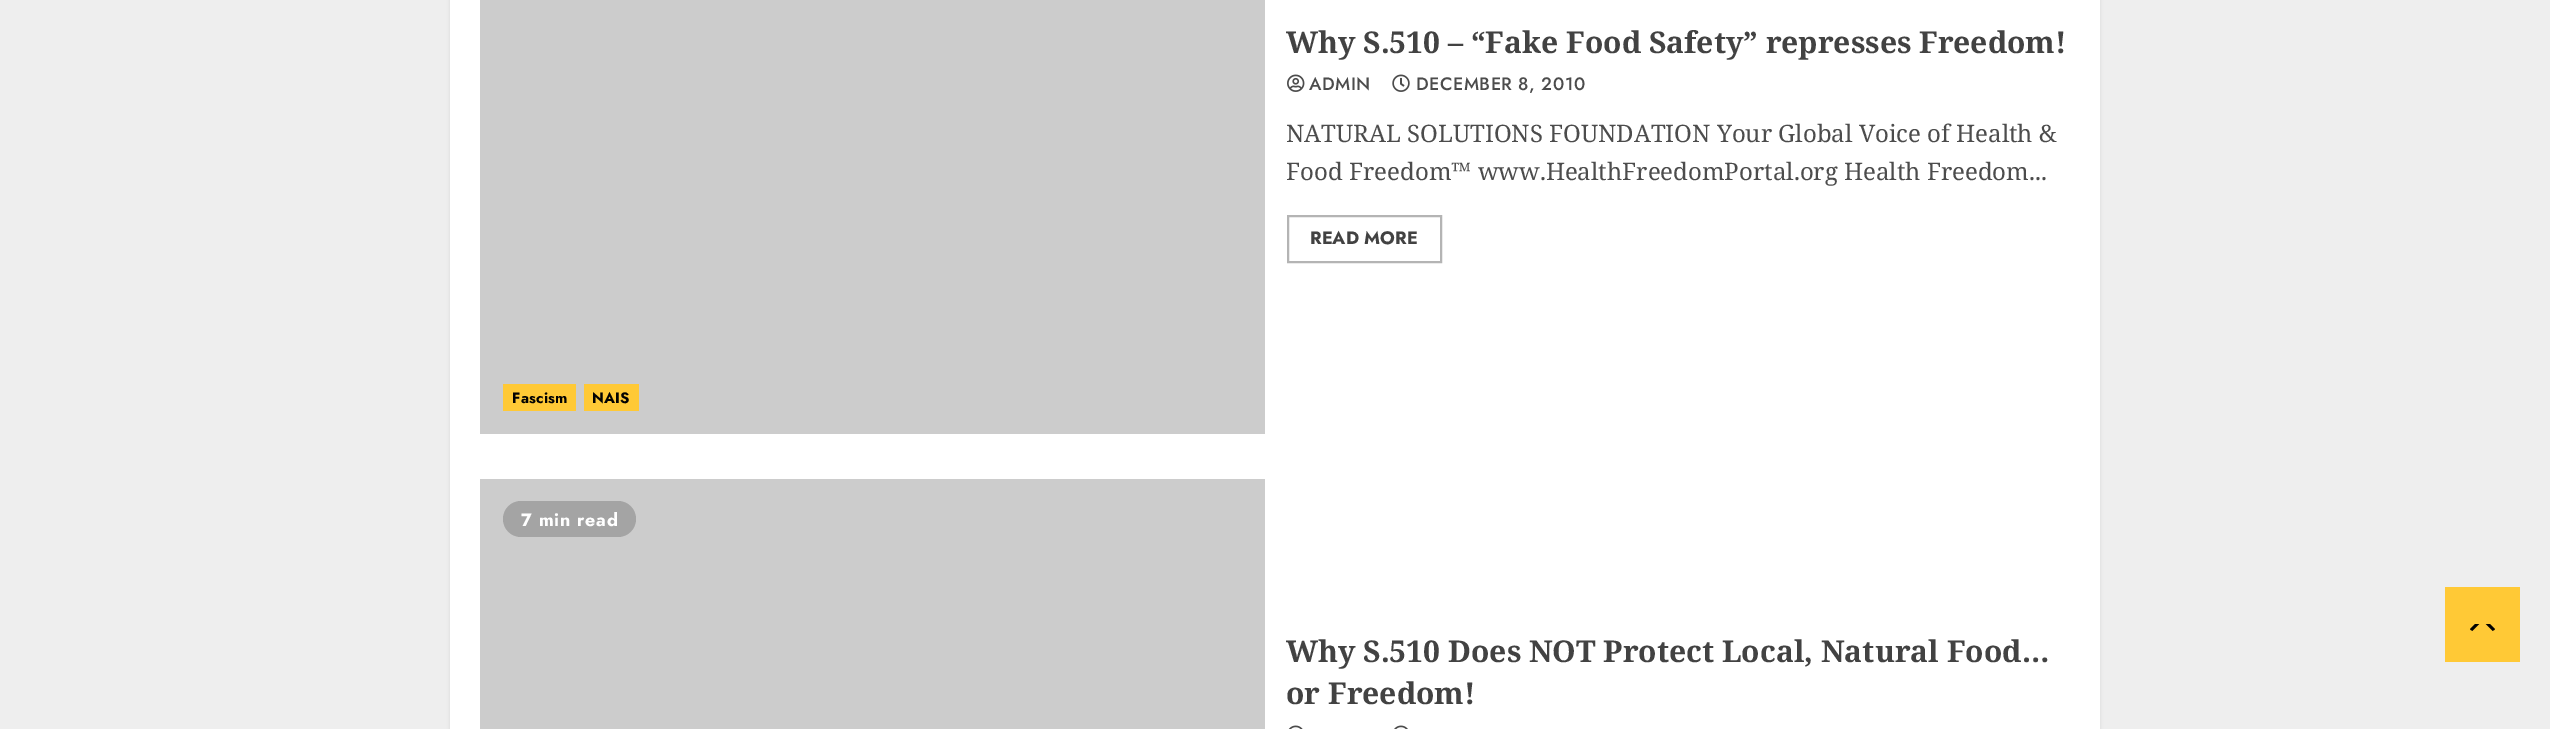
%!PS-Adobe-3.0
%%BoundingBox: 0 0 2550 729
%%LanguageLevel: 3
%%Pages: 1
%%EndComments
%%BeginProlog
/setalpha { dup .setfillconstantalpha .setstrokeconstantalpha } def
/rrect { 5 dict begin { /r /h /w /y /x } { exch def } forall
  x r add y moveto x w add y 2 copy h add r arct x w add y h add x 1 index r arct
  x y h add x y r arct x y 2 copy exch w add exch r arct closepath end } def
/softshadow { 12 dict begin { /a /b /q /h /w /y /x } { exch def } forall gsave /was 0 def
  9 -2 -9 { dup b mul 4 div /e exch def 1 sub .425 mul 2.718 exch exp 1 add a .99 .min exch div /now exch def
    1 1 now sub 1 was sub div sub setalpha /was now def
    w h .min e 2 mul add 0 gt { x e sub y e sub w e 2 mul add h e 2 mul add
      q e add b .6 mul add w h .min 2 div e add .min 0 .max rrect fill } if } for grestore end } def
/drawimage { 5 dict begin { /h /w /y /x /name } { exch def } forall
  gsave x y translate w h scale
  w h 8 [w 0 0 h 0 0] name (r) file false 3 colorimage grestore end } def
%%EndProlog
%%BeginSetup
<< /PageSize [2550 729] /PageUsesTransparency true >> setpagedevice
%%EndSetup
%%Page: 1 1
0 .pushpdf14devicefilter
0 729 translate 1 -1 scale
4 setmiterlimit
0.933 setgray
0 0 2550 729 rectfill
0.008 setgray
450 -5 1650 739 0 1.5 0.08 softshadow
1 setgray
450 0 1650 729 rectfill
(images/1.raw) 1287 74 18 18 drawimage
(images/2.raw) 1392 74 18 18 drawimage
0.706 setgray
2 setlinewidth
1288 216 153 46 rectstroke
0.8 setgray
480 0 785 434 rectfill
1 0.788 0.212 setrgbcolor
503 384 73 27 rectfill
584 384 55 27 rectfill
0.8 setgray
480 479 785 250 rectfill
0.643 setgray
503 501 133 36 18 rrect fill
(images/3.raw) 1288 725 15 4 drawimage
(images/4.raw) 1394 725 14 4 drawimage
1 0.788 0.212 setrgbcolor
2445 587 75 75 rectfill
0.008 setgray
newpath 2475 631.5 moveto 2490 631.5 lineto 2492 631.5 2494 630.5 2495 629 curveto 2490 624 lineto 2475 624 lineto 2470 629 lineto 2471 630.5 2473 631.5 2475 631.5 curveto closepath fill
1 0.788 0.212 setrgbcolor
newpath 2497.5 636 moveto 2467.5 636 lineto 2482.5 621 lineto closepath fill
/NotoSerif-Bold [30 0 0 -30 0 0] selectfont
0.259 setgray
1286 53 moveto (Why S.510 – “Fake Food Safety” represses Freedom!) show
/Jost-Medium [18 0 0 -18 0 0] selectfont
0.298 setgray
1309 90 moveto 0.5 0 (ADMIN) ashow
1416 90 moveto 0.5 0 (DECEMBER 8, 2010) ashow
/NotoSerif-Regular [24 0 0 -24 0 0] selectfont
1286 142 moveto (NATURAL SOLUTIONS FOUNDATION Your Global Voice of Health &) show
1286 180 moveto (Food Freedom™ www.HealthFreedomPortal.org Health Freedom...) show
/Jost-Bold [18 0 0 -18 0 0] selectfont
0.259 setgray
1310 244 moveto (READ MORE) show
/Jost-Bold [15 0 0 -15 0 0] selectfont
0.008 setgray
512 403 moveto 0.25 0 (Fascism) ashow
592 403 moveto 0.25 0 (NAIS) ashow
/Jost-Bold [18 0 0 -18 0 0] selectfont
1 setgray
521 526 moveto 0.75 0 (7 min read) ashow
/NotoSerif-Bold [30 0 0 -30 0 0] selectfont
0.259 setgray
1286 662 moveto (Why S.510 Does NOT Protect Local, Natural Food…) show
1286 704 moveto (or Freedom!) show
.poppdf14devicefilter showpage
%%EOF
